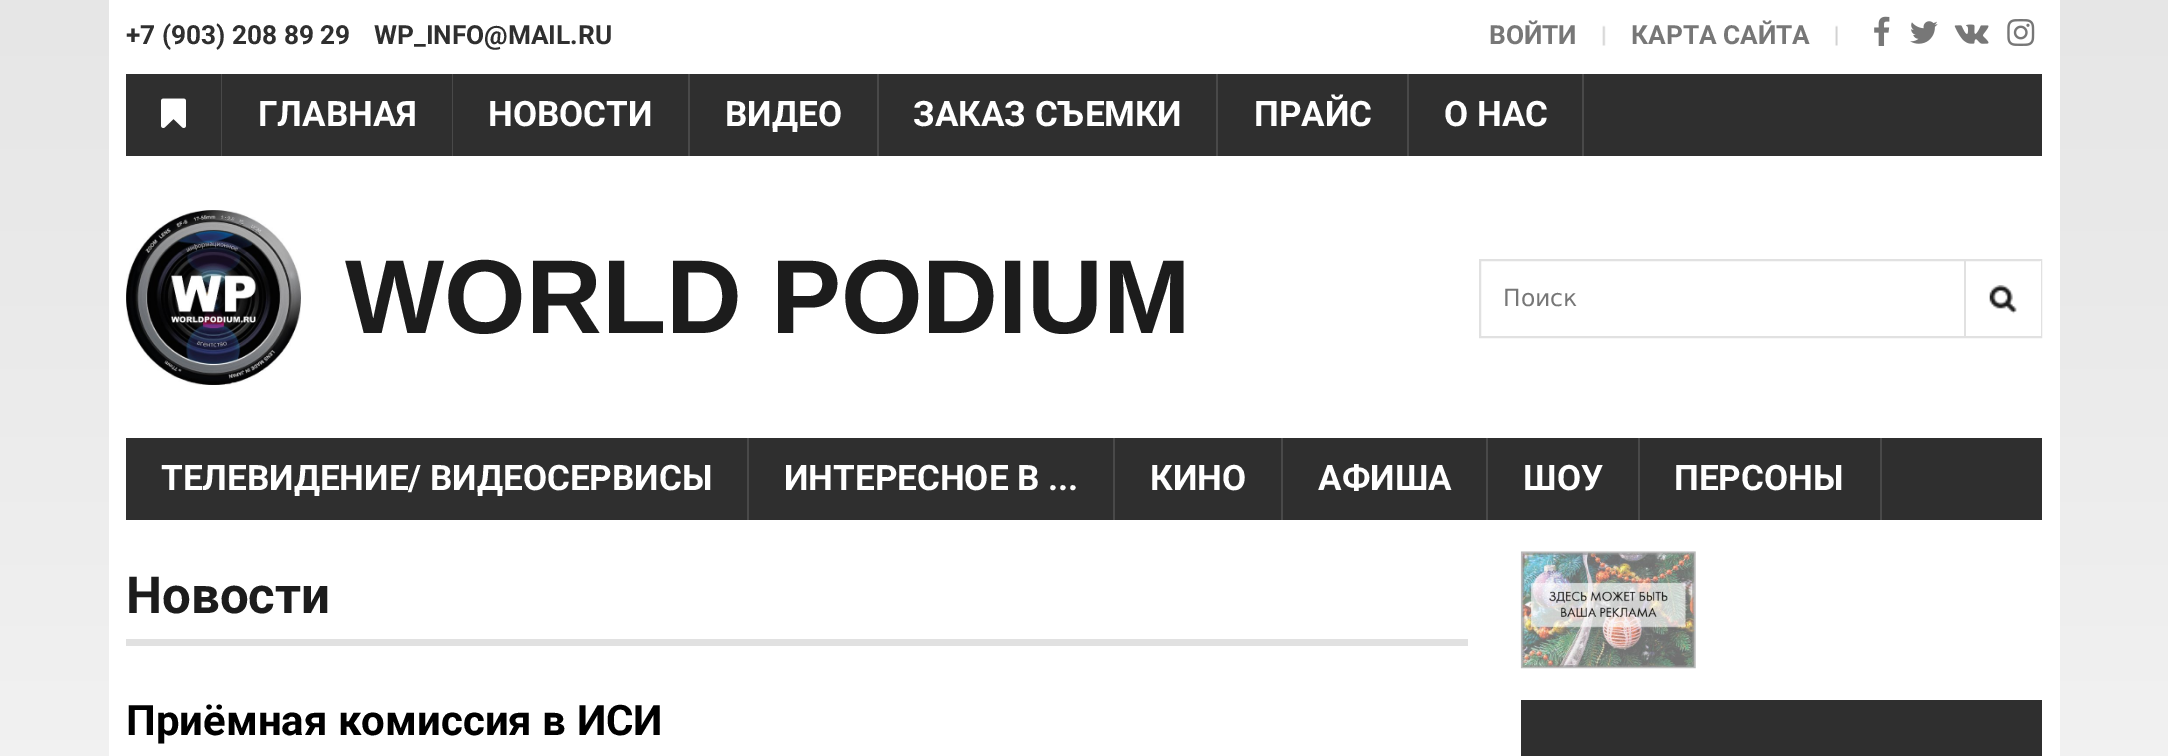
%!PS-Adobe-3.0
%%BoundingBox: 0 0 2168 756
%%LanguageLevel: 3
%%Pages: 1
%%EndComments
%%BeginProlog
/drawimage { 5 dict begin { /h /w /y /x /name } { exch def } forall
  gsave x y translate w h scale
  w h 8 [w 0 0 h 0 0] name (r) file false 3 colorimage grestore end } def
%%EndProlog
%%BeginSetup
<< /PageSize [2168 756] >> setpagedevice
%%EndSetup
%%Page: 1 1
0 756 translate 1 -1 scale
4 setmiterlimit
1 setgray
0 0 2168 756 rectfill
(images/1.raw) 0 0 2168 756 drawimage
109 0 1951 756 rectfill
(images/2.raw) 1602 25 4 21 drawimage
(images/3.raw) 1835 25 3 21 drawimage
(images/4.raw) 1874 16 16 30 drawimage
(images/5.raw) 1910 21 28 23 drawimage
(images/6.raw) 1954 24 35 20 drawimage
(images/7.raw) 2007 19 28 27 drawimage
0.184 setgray
126 74 1916 82 rectfill
0.286 setgray
221 74 1 82 rectfill
(images/8.raw) 161 98 25 30 drawimage
452 74 1 82 rectfill
688 74 2 82 rectfill
877 74 2 82 rectfill
1216 74 2 82 rectfill
1407 74 2 82 rectfill
1582 74 2 82 rectfill
(images/9.raw) 126 210 175 175 drawimage
0.882 setgray
2 setlinewidth
1480 260 561 77 rectstroke
1 setgray
2040 261 1 75 rectfill
(images/10.raw) 1989 285 28 29 drawimage
0.882 setgray
1964 261 2 77 rectfill
0.184 setgray
126 438 1916 82 rectfill
0.286 setgray
747 438 2 82 rectfill
1113 438 2 82 rectfill
1281 438 2 82 rectfill
1486 438 2 82 rectfill
1638 438 2 82 rectfill
1880 438 2 82 rectfill
0.882 setgray
126 639 1342 7 rectfill
(images/11.raw) 1520 551 176 118 drawimage
0.184 setgray
1521 700 521 56 rectfill
/Roboto-Bold [26.25 0 0 -26.25 0 0] selectfont
126 44 moveto (+7 \(903\) 208 89 29) show
374 44 moveto (WP_INFO@MAIL.RU) show
0.467 setgray
1489 44 moveto (ВОЙТИ) show
1631 44 moveto (КАРТА САЙТА) show
/Roboto-Bold [35 0 0 -35 0 0] selectfont
1 setgray
258 126 moveto (ГЛАВНАЯ) show
488 126 moveto (НОВОСТИ) show
725 126 moveto (ВИДЕО) show
913 126 moveto (ЗАКАЗ СЪЕМКИ) show
1254 126 moveto (ПРАЙС) show
1444 126 moveto (О НАС) show
/LiberationSans-Bold [105 0 0 -105 0 0] selectfont
0.11 setgray
345 333 moveto (WORLD PODIUM) show
/DejaVuSans-Regular [23.5 0 0 -23.5 0 0] selectfont
0.467 setgray
1503 306 moveto (Поиск) show
/Roboto-Bold [35 0 0 -35 0 0] selectfont
1 setgray
161 490 moveto (ТЕЛЕВИДЕНИЕ/ ВИДЕОСЕРВИСЫ) show
784 490 moveto (ИНТЕРЕСНОЕ В ...) show
1150 490 moveto (КИНО) show
1318 490 moveto (АФИША) show
1523 490 moveto (ШОУ) show
1674 490 moveto (ПЕРСОНЫ) show
/Roboto-Bold [51 0 0 -51 0 0] selectfont
0.11 setgray
126 613 moveto (Новости) show
/Roboto-Bold [42 0 0 -42 0 0] selectfont
0 setgray
126 735 moveto (Приёмная комиссия в ИСИ) show
showpage
%%EOF
